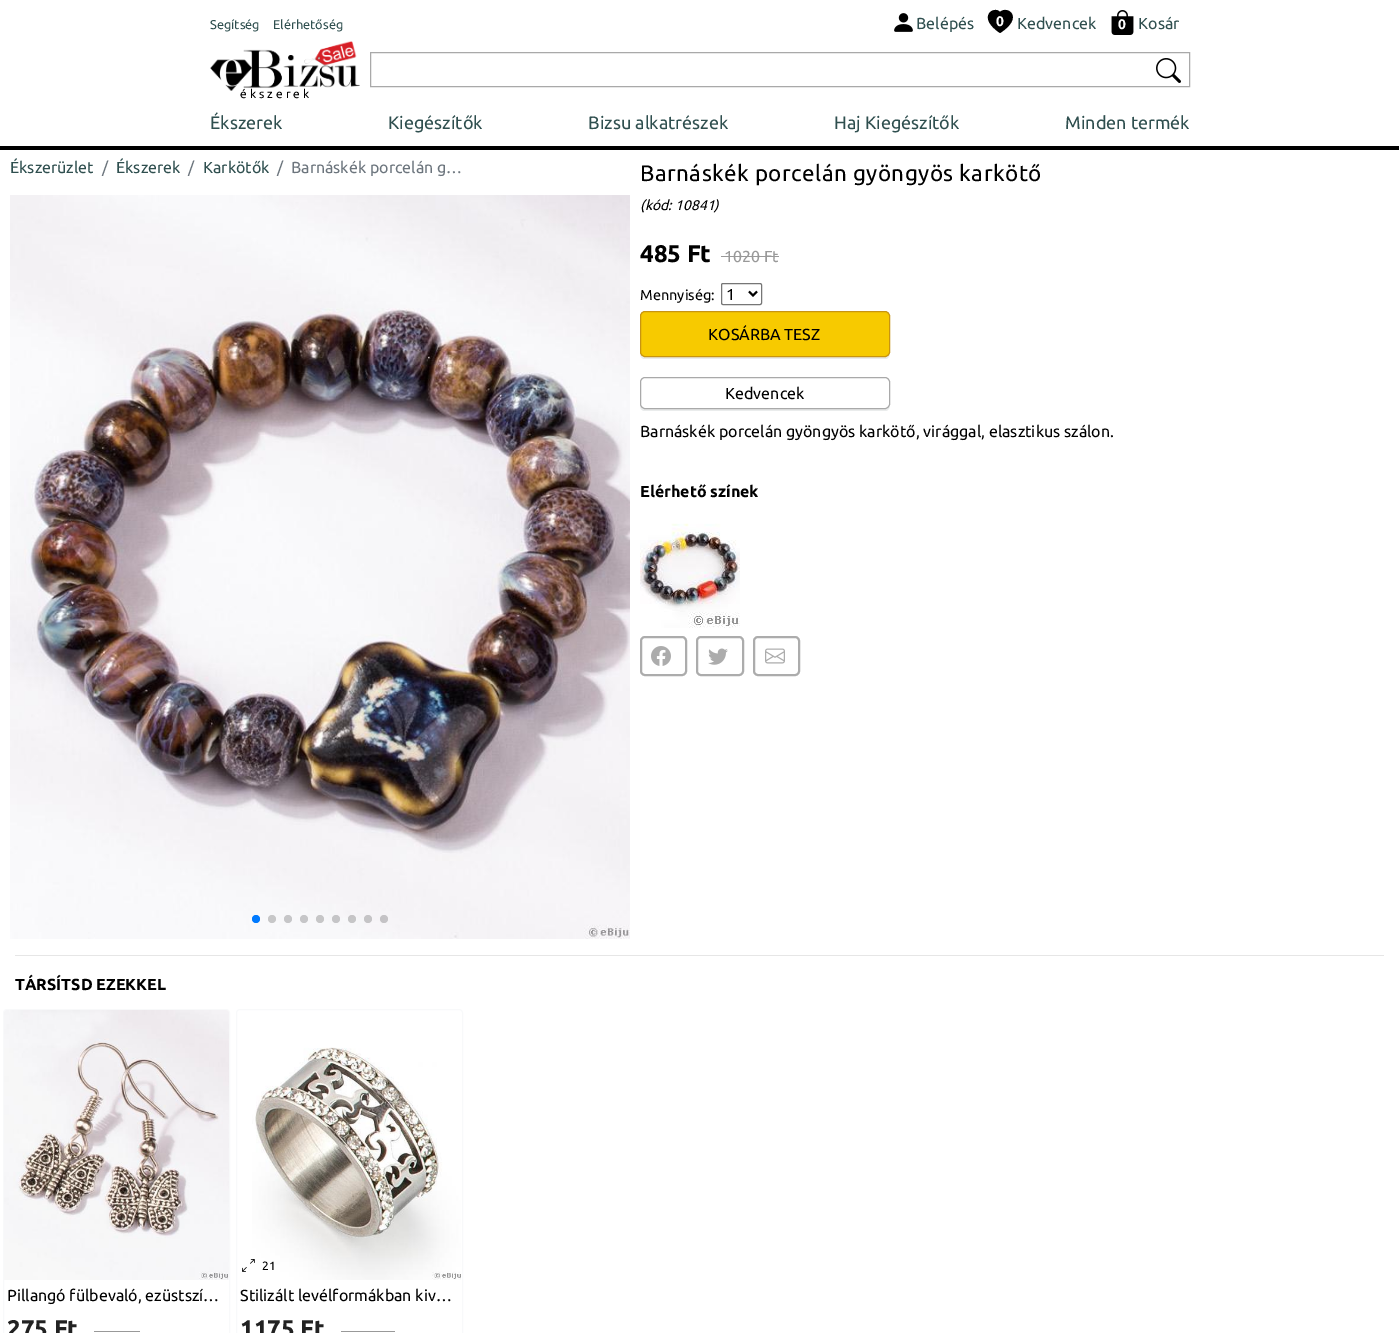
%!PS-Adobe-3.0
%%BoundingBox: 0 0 1399 1333
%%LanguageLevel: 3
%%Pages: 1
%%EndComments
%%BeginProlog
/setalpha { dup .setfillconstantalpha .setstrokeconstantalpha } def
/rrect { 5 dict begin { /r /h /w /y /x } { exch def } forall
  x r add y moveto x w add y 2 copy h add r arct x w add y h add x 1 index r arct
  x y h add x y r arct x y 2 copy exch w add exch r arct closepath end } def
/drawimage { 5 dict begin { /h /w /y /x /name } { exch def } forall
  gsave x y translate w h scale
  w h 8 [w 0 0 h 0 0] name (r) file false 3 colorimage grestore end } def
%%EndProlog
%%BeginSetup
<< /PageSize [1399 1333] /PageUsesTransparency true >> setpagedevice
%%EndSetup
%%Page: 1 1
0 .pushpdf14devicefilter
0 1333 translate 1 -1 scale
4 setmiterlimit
1 setgray
0 0 1399 1333 rectfill
(images/1.raw) 894 13 19 19 drawimage
0 setgray
newpath 1000 12 moveto 1007 5 1025 17 1000 33 curveto 976 17 994 5 1000 12 curveto closepath eofill
(images/2.raw) 1111 10 23 25 drawimage
0.663 setgray
370.5 52.5 819 34 rectstroke
(images/3.raw) 1156 58 25 25 drawimage
(images/4.raw) 210 41 150 50 drawimage
0 setgray
0 146 1399 4 rectfill
(images/5.raw) 10 195 620 744 drawimage
0 0.478 1 setrgbcolor
newpath 256 919 4 0 360 arc closepath fill
0.78 0.78 0.784 setrgbcolor
newpath 272 919 4 0 360 arc closepath fill
0.776 0.776 0.784 setrgbcolor
newpath 288 919 4 0 360 arc closepath fill
newpath 304 919 4 0 360 arc closepath fill
0.776 0.776 0.78 setrgbcolor
newpath 320 919 4 0 360 arc closepath fill
0.773 0.773 0.78 setrgbcolor
newpath 336 919 4 0 360 arc closepath fill
0.2 setalpha
0 setgray
newpath 352 919 4 0 360 arc closepath fill
1 setalpha
0.773 0.769 0.776 setrgbcolor
newpath 368 919 4 0 360 arc closepath fill
0.2 setalpha
0 setgray
newpath 384 919 4 0 360 arc closepath fill
1 setalpha
0.6 setgray
721 256 58 1 rectfill
0.463 setgray
721.5 283.5 40 21 1.5 rrect stroke
0 setgray
2 setlinewidth
newpath 749 291.5 moveto 753 295.5 lineto 757 291.5 lineto stroke
0.918 0.925 0.925 setrgbcolor
newpath 640 352 moveto 640 355 640 358 644 359 curveto 885 359 lineto 889 359 890 355 890 352 curveto 890 355 888 357 885 357 curveto 645 357 lineto 642 357 640 355 640 352 curveto closepath fill
0.969 0.792 0 setrgbcolor
640.5 311.5 249 45 4.5 rrect gsave fill grestore
0.784 0.58 0.067 setrgbcolor
1 setlinewidth
stroke
0.918 0.925 0.925 setrgbcolor
newpath 640 404 moveto 640 407 640 410 644 411 curveto 885 411 lineto 889 411 890 407 890 404 curveto 890 407 888 409 885 409 curveto 645 409 lineto 642 409 640 407 640 404 curveto closepath fill
1 setgray
640.5 377.5 249 31 4.5 rrect gsave fill grestore
0.663 setgray
stroke
(images/6.raw) 640 523 100 105 drawimage
0.675 setgray
2 setlinewidth
641 637 45 38 4 rrect stroke
(images/7.raw) 651 646 20 20 drawimage
697 637 46 38 4 rrect stroke
(images/8.raw) 708 648 20 17 drawimage
754 637 45 38 4 rrect stroke
(images/9.raw) 765 648 20 16 drawimage
0.902 setgray
15 955 1369 1 rectfill
0.973 0.976 0.98 setrgbcolor
1 setlinewidth
3.5 1009.5 226 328 3.5 rrect stroke
(images/10.raw) 4 1010 225 270 drawimage
0.6 setgray
94 1331 46 1 rectfill
0.973 0.976 0.98 setrgbcolor
236.5 1009.5 226 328 3.5 rrect stroke
(images/11.raw) 252 1047 209 233 drawimage
(images/12.raw) 242 1259 13 13 drawimage
0.6 setgray
341 1331 54 1 rectfill
/Ubuntu-Regular [12.75 0 0 -12.75 0 0] selectfont
0.184 0.31 0.31 setrgbcolor
210 29 moveto (Segítség) show
273 29 moveto (Elérhetőség) show
/Ubuntu-Regular [16 0 0 -16 0 0] selectfont
916 29 moveto (Belépés) show
/Ubuntu-Bold [14 0 0 -14 0 0] selectfont
1 setgray
996 26 moveto (0) show
/Ubuntu-Regular [16 0 0 -16 0 0] selectfont
0.184 0.31 0.31 setrgbcolor
1017 29 moveto (Kedvencek) show
/Ubuntu-Bold [14 0 0 -14 0 0] selectfont
1 setgray
1118 29 moveto (0) show
/Ubuntu-Regular [16 0 0 -16 0 0] selectfont
0.184 0.31 0.31 setrgbcolor
1138 29 moveto (Kosár) show
/Ubuntu-Regular [12 0 0 -12 0 0] selectfont
0 setgray
240 98 moveto 3 0 (ékszerek) ashow
/Ubuntu-Regular [18 0 0 -18 0 0] selectfont
0.184 0.31 0.31 setrgbcolor
210 129 moveto (Ékszerek) show
388 129 moveto (Kiegészítők) show
588 129 moveto (Bizsu alkatrészek) show
834 129 moveto (Haj Kiegészítők) show
1065 129 moveto (Minden termék) show
/Ubuntu-Regular [16 0 0 -16 0 0] selectfont
10 173 moveto (Ékszerüzlet) show
0.424 0.459 0.49 setrgbcolor
102 173 moveto (/) show
0.184 0.31 0.31 setrgbcolor
116 173 moveto (Ékszerek) show
0.424 0.459 0.49 setrgbcolor
188 173 moveto (/) show
0.184 0.31 0.31 setrgbcolor
203 173 moveto (Karkötők) show
0.424 0.459 0.49 setrgbcolor
277 173 moveto (/) show
291 173 moveto (Barnáskék porcelán g…) show
/Ubuntu-Regular [22.4 0 0 -22.4 0 0] selectfont
0 setgray
640 181 moveto 0.45 0 (Barnáskék porcelán gyöngyös karkötő) ashow
/Ubuntu-Italic [14 0 0 -14 0 0] selectfont
640 210 moveto (\(kód: 10841\)) show
/Ubuntu-Bold [24 0 0 -24 0 0] selectfont
640 262 moveto (485 Ft) show
/Ubuntu-Regular [16 0 0 -16 0 0] selectfont
0.6 setgray
724 262 moveto (1020 Ft) show
/Ubuntu-Regular [14.5 0 0 -14.5 0 0] selectfont
0 setgray
640 300 moveto (Mennyiség:) show
/Ubuntu-Regular [16 0 0 -16 0 0] selectfont
726 300 moveto (1) show
708 340 moveto (KOSÁRBA TESZ) show
725 399 moveto (Kedvencek) show
640 437 moveto (Barnáskék porcelán gyöngyös karkötő, virággal, elasztikus szálon.) show
/Ubuntu-Bold [16 0 0 -16 0 0] selectfont
640 497 moveto (Elérhető színek) show
15 990 moveto (TÁRSÍTSD EZEKKEL) show
/Ubuntu-Regular [16 0 0 -16 0 0] selectfont
7 1301 moveto (Pillangó fülbevaló, ezüstszí…) show
/Ubuntu-Bold [24 0 0 -24 0 0] selectfont
0.133 setgray
7 1337 moveto (275 Ft) show
/Ubuntu-Regular [12 0 0 -12 0 0] selectfont
0 setgray
262 1270 moveto (21) show
/Ubuntu-Regular [16 0 0 -16 0 0] selectfont
240 1301 moveto (Stilizált levélformákban kiv…) show
/Ubuntu-Bold [24 0 0 -24 0 0] selectfont
0.133 setgray
240 1337 moveto (1175 Ft) show
.poppdf14devicefilter showpage
%%EOF
